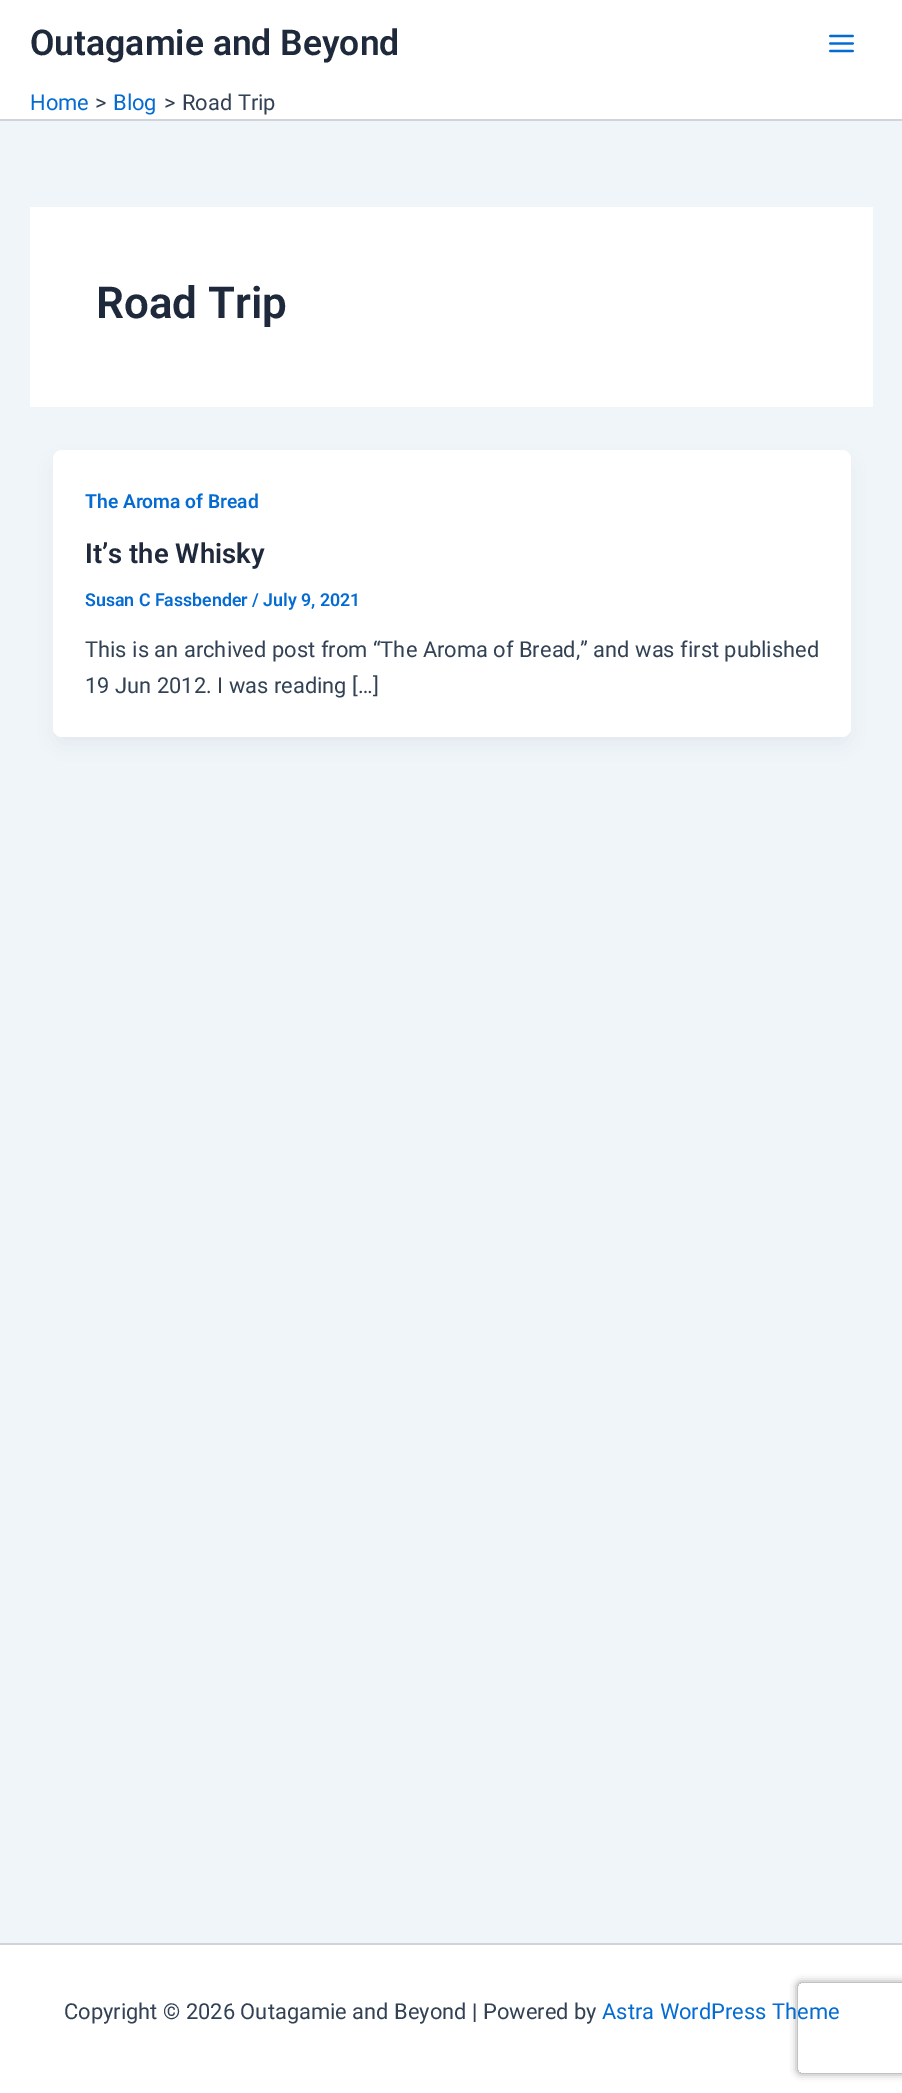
%!PS-Adobe-3.0
%%BoundingBox: 0 0 902 2093
%%LanguageLevel: 3
%%Pages: 1
%%EndComments
%%BeginProlog
/setalpha { dup .setfillconstantalpha .setstrokeconstantalpha } def
/rrect { 5 dict begin { /r /h /w /y /x } { exch def } forall
  x r add y moveto x w add y 2 copy h add r arct x w add y h add x 1 index r arct
  x y h add x y r arct x y 2 copy exch w add exch r arct closepath end } def
/softshadow { 12 dict begin { /a /b /q /h /w /y /x } { exch def } forall gsave /was 0 def
  9 -2 -9 { dup b mul 4 div /e exch def 1 sub .425 mul 2.718 exch exp 1 add a .99 .min exch div /now exch def
    1 1 now sub 1 was sub div sub setalpha /was now def
    w h .min e 2 mul add 0 gt { x e sub y e sub w e 2 mul add h e 2 mul add
      q e add b .6 mul add w h .min 2 div e add .min 0 .max rrect fill } if } for grestore end } def
/drawimage { 5 dict begin { /h /w /y /x /name } { exch def } forall
  gsave x y translate w h scale
  w h 8 [w 0 0 h 0 0] name (r) file false 3 colorimage grestore end } def
%%EndProlog
%%BeginSetup
<< /PageSize [902 2093] /PageUsesTransparency true >> setpagedevice
%%EndSetup
%%Page: 1 1
0 .pushpdf14devicefilter
0 2093 translate 1 -1 scale
4 setmiterlimit
0.941 0.961 0.98 setrgbcolor
0 0 902 2093 rectfill
1 setgray
0 0 902 119 rectfill
0.82 0.835 0.859 setrgbcolor
0 119 902 2 rectfill
(images/1.raw) 829 34 25 19 drawimage
1 setgray
30 207 843 200 rectfill
0.063 0.094 0.157 setrgbcolor
56 462 792 281 6 11 0.05 softshadow
1 setgray
53 450 798 287 9 rrect fill
0 1945 902 148 rectfill
0.82 0.835 0.859 setrgbcolor
0 1943 902 2 rectfill
gsave
newpath 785 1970 moveto 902 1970 lineto 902 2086 lineto 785 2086 lineto closepath 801 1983 moveto 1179 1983 lineto 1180.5 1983 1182 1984.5 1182 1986 curveto 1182 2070 lineto 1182 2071.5 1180.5 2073 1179 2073 curveto 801 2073 lineto 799.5 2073 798 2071.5 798 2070 curveto 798 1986 lineto 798 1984.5 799.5 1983 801 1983 curveto closepath eoclip newpath
0.502 setgray
798 1983 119 90 3 4 1 softshadow
grestore
/Roboto-SemiBold [35.5 0 0 -35.5 0 0] selectfont
0.118 0.161 0.231 setrgbcolor
30 55 moveto (Outagamie and Beyond) show
/Roboto-Regular [21.9 0 0 -21.9 0 0] selectfont
0.016 0.42 0.824 setrgbcolor
30 110 moveto (Home) show
0.2 0.255 0.333 setrgbcolor
95 110 moveto (>) show
0.016 0.42 0.824 setrgbcolor
113 110 moveto (Blog) show
0.2 0.255 0.333 setrgbcolor
164 110 moveto (>) show
182 110 moveto (Road Trip) show
/Roboto-SemiBold [44 0 0 -44 0 0] selectfont
0.118 0.161 0.231 setrgbcolor
96 318 moveto (Road Trip) show
/Roboto-SemiBold [19.25 0 0 -19.25 0 0] selectfont
0.016 0.42 0.824 setrgbcolor
85 508 moveto (The Aroma of Bread) show
/Roboto-SemiBold [27.5 0 0 -27.5 0 0] selectfont
0.118 0.161 0.231 setrgbcolor
85 563 moveto (It’s the Whisky) show
/Roboto-SemiBold [17.75 0 0 -17.75 0 0] selectfont
0.016 0.42 0.824 setrgbcolor
85 606 moveto (Susan C Fassbender / July 9, 2021) show
/Roboto-Regular [21.9 0 0 -21.9 0 0] selectfont
0.2 0.255 0.333 setrgbcolor
85 657 moveto (This is an archived post from “The Aroma of Bread,” and was first published) show
85 693 moveto (19 Jun 2012. I was reading […]) show
64 2019 moveto (Copyright © 2026 Outagamie and Beyond | Powered by) show
0.016 0.42 0.824 setrgbcolor
602 2019 moveto (Astra WordPress Theme) show
.poppdf14devicefilter showpage
%%EOF
